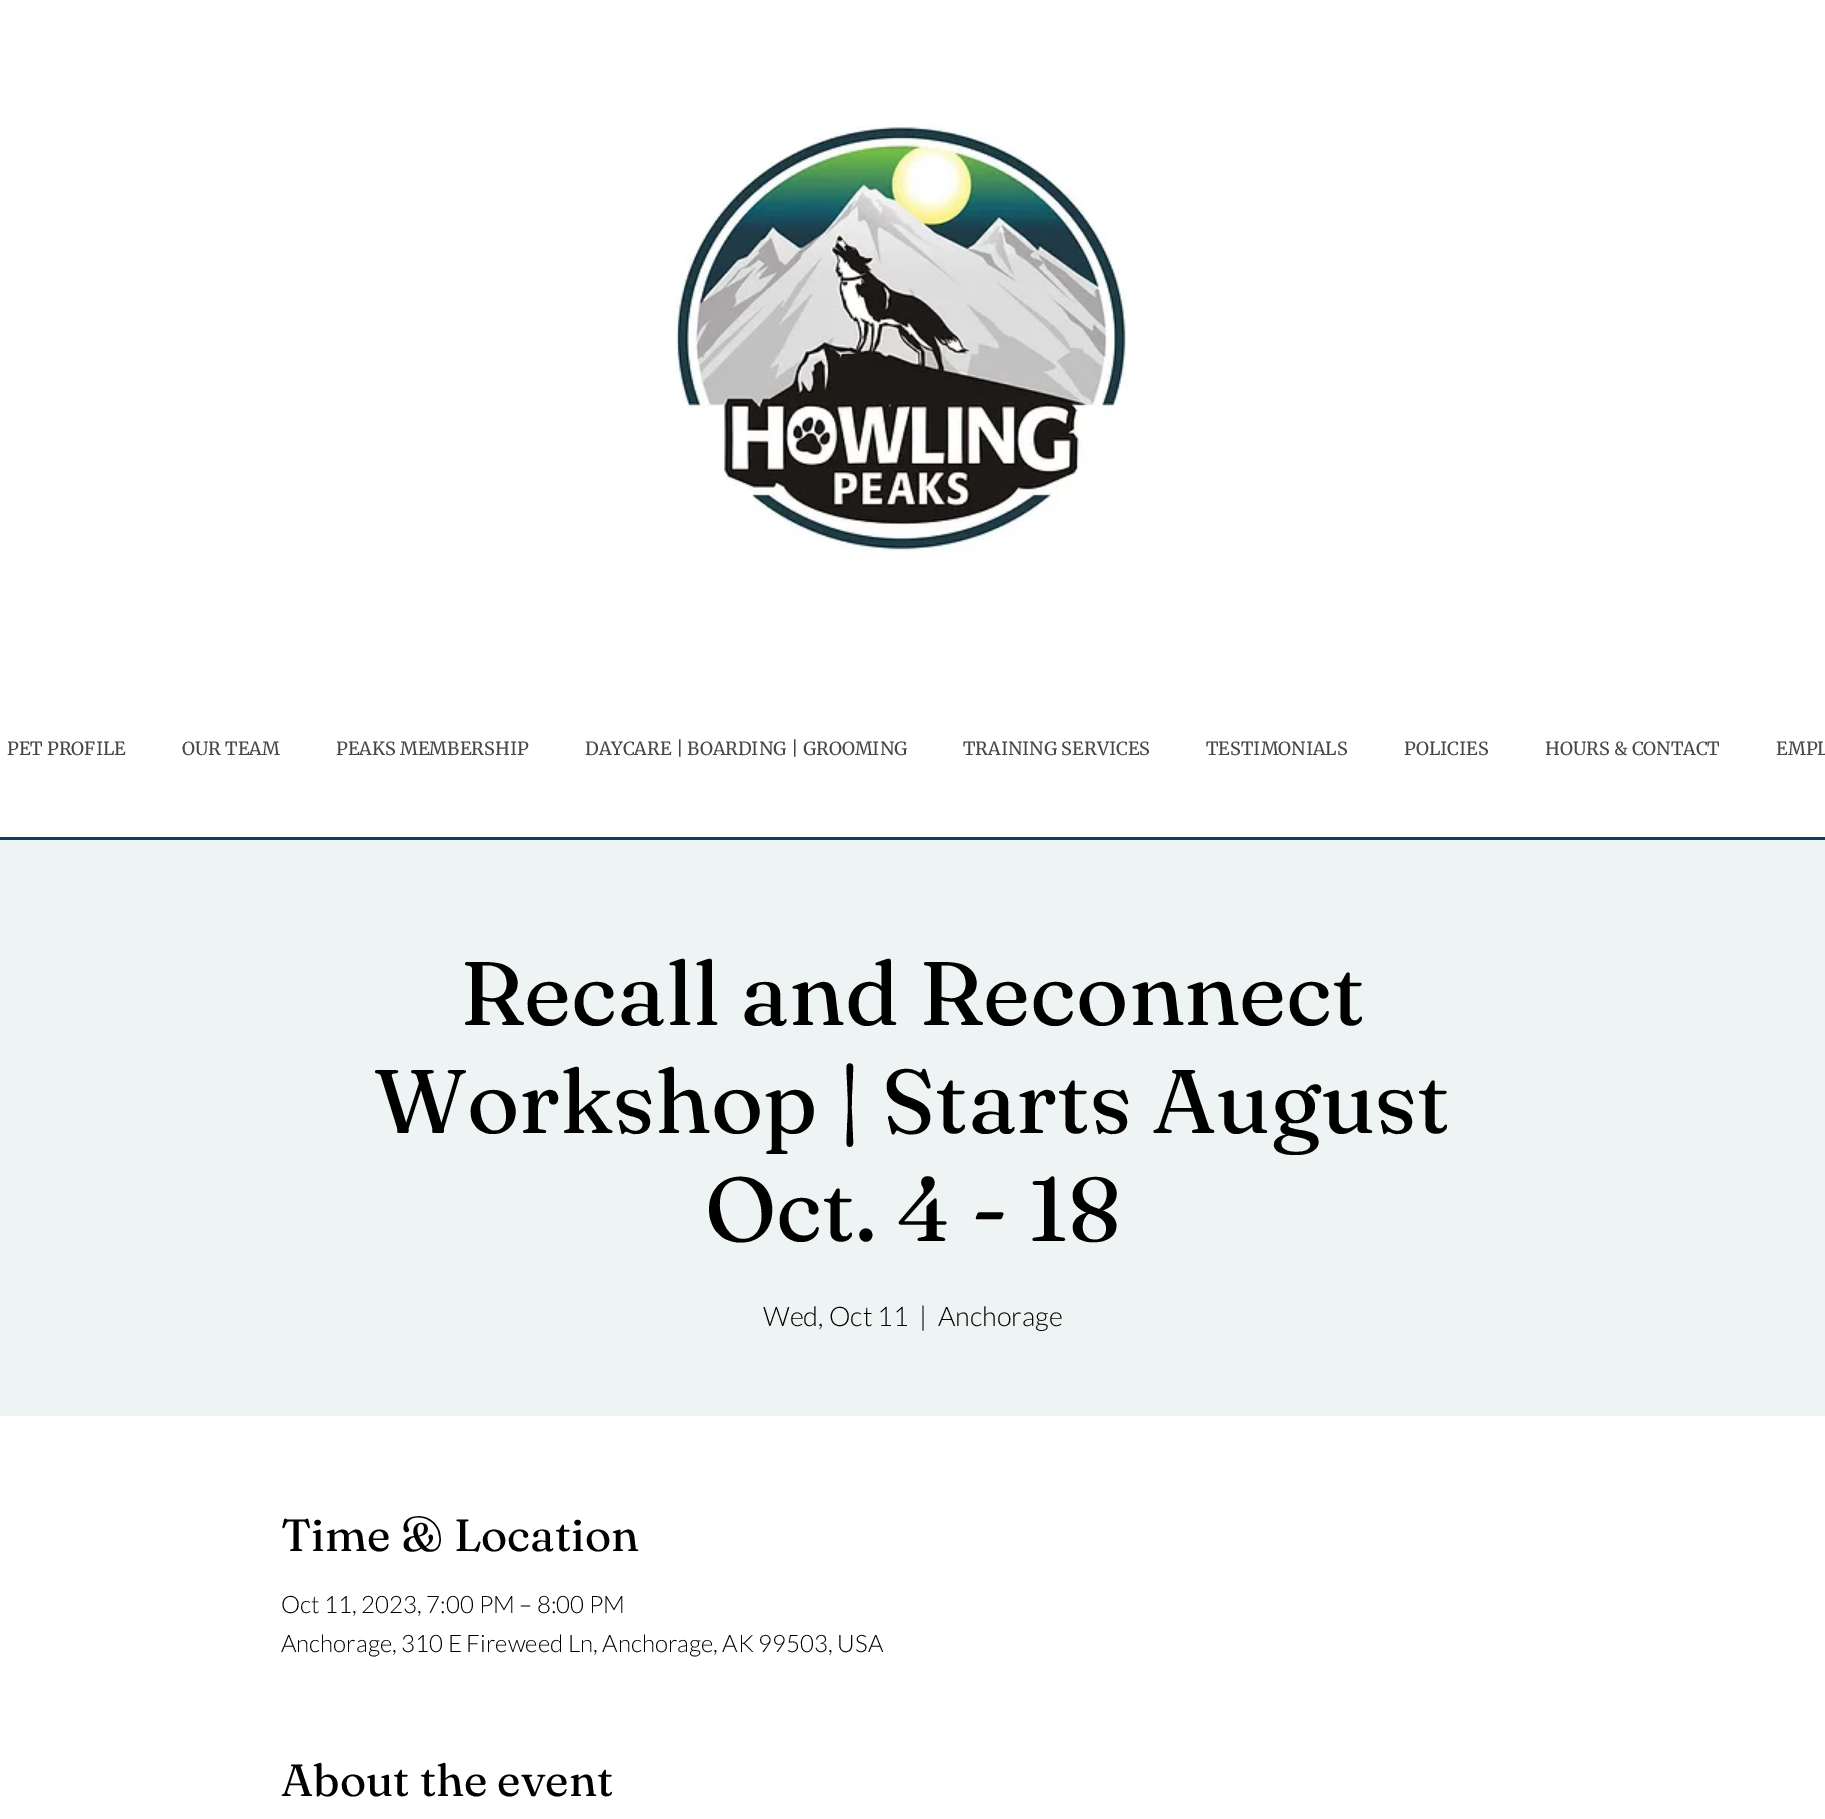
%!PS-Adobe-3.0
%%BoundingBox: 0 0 1825 1819
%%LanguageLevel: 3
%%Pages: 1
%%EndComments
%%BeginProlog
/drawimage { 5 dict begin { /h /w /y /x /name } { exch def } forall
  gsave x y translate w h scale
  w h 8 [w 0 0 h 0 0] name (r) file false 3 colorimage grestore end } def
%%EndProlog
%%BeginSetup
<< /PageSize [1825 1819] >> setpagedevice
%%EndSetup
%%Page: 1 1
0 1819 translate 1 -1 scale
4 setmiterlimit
0.055 0.243 0.388 setrgbcolor
0 0 1825 1819 rectfill
1 setgray
0 0 1825 837 rectfill
(images/1.raw) 675 125 454 427 drawimage
0.933 0.957 0.953 setrgbcolor
0 840 1825 576 rectfill
1 setgray
0 1416 1825 403 rectfill
/Merriweather-Regular [18 0 0 -18 0 0] selectfont
0.275 setgray
7 755 moveto (PET PROFILE) show
182 755 moveto (OUR TEAM) show
336 755 moveto (PEAKS MEMBERSHIP) show
585 755 moveto (DAYCARE | BOARDING | GROOMING) show
963 755 moveto (TRAINING SERVICES) show
1206 755 moveto (TESTIMONIALS) show
1404 755 moveto (POLICIES) show
1545 755 moveto (HOURS & CONTACT) show
1776 755 moveto (EMPL) show
/Fraunces-Regular [90 0 0 -90 0 0] selectfont
0 setgray
460 1025 moveto (Recall and Reconnect) show
374 1133 moveto (Workshop | Starts August) show
705 1241 moveto (Oct. 4 - 18) show
/Lato-Light [27 0 0 -27 0 0] selectfont
763 1326 moveto (Wed, Oct 11) show
919 1326 moveto (|) show
938 1326 moveto (Anchorage) show
/Fraunces-Regular [45 0 0 -45 0 0] selectfont
281 1551 moveto (Time & Location) show
/Lato-Light [24 0 0 -24 0 0] selectfont
281 1613 moveto (Oct 11, 2023, 7:00 PM – 8:00 PM) show
281 1652 moveto (Anchorage, 310 E Fireweed Ln, Anchorage, AK 99503, USA) show
/Fraunces-Regular [45 0 0 -45 0 0] selectfont
281 1796 moveto (About the event) show
showpage
%%EOF
